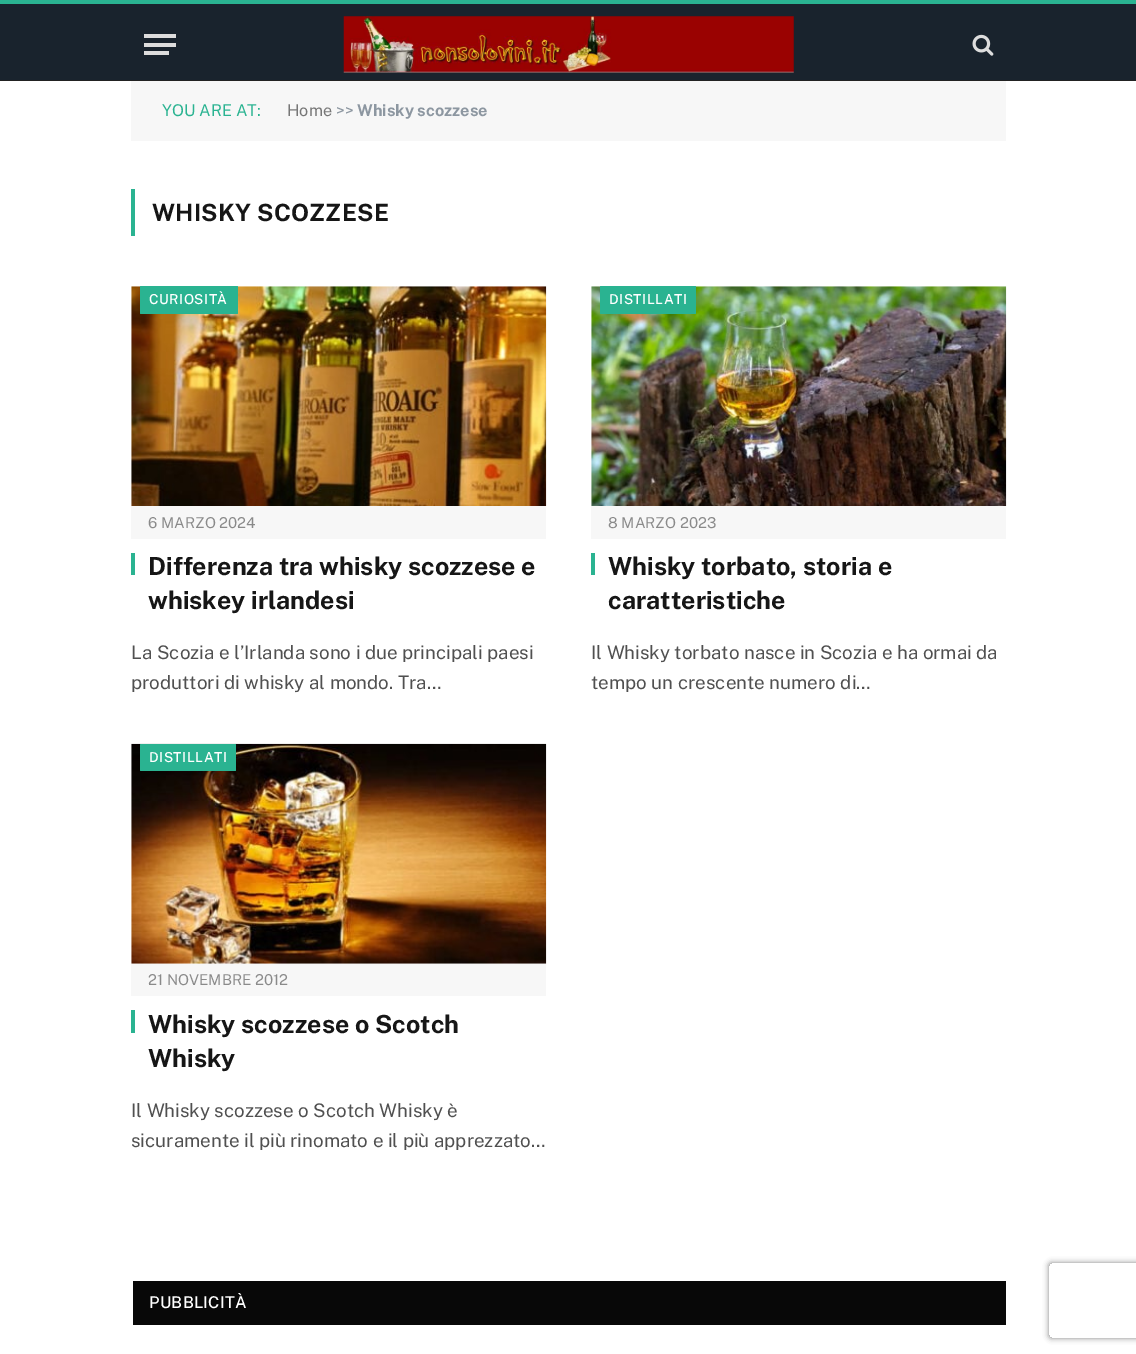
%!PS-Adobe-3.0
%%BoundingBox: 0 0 1136 1354
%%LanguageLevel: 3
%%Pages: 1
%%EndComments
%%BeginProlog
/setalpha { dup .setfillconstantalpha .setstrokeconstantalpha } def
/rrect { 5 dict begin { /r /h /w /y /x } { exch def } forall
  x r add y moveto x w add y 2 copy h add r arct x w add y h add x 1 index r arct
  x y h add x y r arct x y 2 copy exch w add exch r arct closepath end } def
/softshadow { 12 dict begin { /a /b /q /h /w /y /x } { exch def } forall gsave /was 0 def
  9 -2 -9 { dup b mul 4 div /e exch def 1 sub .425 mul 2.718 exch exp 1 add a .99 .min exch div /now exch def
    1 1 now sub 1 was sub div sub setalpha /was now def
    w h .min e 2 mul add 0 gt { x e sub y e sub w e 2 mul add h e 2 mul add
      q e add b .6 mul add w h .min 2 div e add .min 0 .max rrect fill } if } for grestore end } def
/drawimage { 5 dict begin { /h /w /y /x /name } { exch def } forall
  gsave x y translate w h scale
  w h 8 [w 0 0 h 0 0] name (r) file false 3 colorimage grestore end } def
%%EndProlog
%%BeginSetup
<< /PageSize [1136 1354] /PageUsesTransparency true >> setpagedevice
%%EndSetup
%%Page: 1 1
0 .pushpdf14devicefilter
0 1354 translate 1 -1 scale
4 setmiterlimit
1 setgray
0 0 1136 1354 rectfill
0.098 0.137 0.176 setrgbcolor
0 4 1136 76 rectfill
0.165 0.702 0.569 setrgbcolor
0 0 1136 4 rectfill
0.133 setgray
0 80 1136 1 rectfill
0.867 setgray
144 51 25 4 rectfill
144 34 32 4 rectfill
144 43 32 4 rectfill
(images/1.raw) 343 16 451 57 drawimage
(images/2.raw) 972 34 22 22 drawimage
0.969 setgray
131 81 875 60 rectfill
0.165 0.702 0.569 setrgbcolor
131 189 4 47 rectfill
(images/3.raw) 131 286 416 220 drawimage
140 286 98 28 1 rrect fill
0.969 setgray
131 506 415 33 rectfill
0.165 0.702 0.569 setrgbcolor
131 553 4 22 rectfill
(images/4.raw) 591 286 416 220 drawimage
600 286 96 28 1 rrect fill
0.969 setgray
591 506 415 33 rectfill
0.165 0.702 0.569 setrgbcolor
591 553 4 22 rectfill
(images/5.raw) 131 743 416 221 drawimage
140 744 96 27 1 rrect fill
0.969 setgray
131 964 415 32 rectfill
0.165 0.702 0.569 setrgbcolor
131 1010 4 23 rectfill
0.031 setgray
133 1281 873 44 rectfill
gsave
newpath 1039 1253 moveto 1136 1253 lineto 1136 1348 lineto 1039 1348 lineto closepath 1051.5 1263 moveto 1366.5 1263 lineto 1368 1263 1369 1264 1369 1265.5 curveto 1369 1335.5 lineto 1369 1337 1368 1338 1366.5 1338 curveto 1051.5 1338 lineto 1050 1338 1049 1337 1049 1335.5 curveto 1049 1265.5 lineto 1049 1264 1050 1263 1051.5 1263 curveto closepath eoclip newpath
0.502 setgray
1049 1263 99 75 2.5 3 1 softshadow
grestore
/PublicSans-Regular [16.25 0 0 -16.25 0 0] selectfont
0.165 0.702 0.569 setrgbcolor
162 116 moveto (YOU ARE AT:) show
0.467 setgray
287 116 moveto (Home) show
0.553 0.592 0.631 setrgbcolor
336 116 moveto (>>) show
/PublicSans-Bold [16.25 0 0 -16.25 0 0] selectfont
357 116 moveto (Whisky scozzese) show
/PublicSans-Bold [23.75 0 0 -23.75 0 0] selectfont
0.086 setgray
152 221 moveto 0.25 0 (WHISKY SCOZZESE) ashow
/PublicSans-Medium [13.75 0 0 -13.75 0 0] selectfont
1 setgray
149 304 moveto 0.5 0 (CURIOSITÀ) ashow
/PublicSans-Regular [15 0 0 -15 0 0] selectfont
0.541 setgray
148 528 moveto (6 MARZO 2024) show
/PublicSans-Bold [25 0 0 -25 0 0] selectfont
0.086 setgray
148 575 moveto (Differenza tra whisky scozzese e) show
148 609 moveto (whiskey irlandesi) show
/PublicSans-Regular [18.75 0 0 -18.75 0 0] selectfont
0.314 setgray
131 659 moveto (La Scozia e l’Irlanda sono i due principali paesi) show
131 689 moveto (produttori di whisky al mondo. Tra…) show
/PublicSans-Medium [13.75 0 0 -13.75 0 0] selectfont
1 setgray
609 304 moveto 0.5 0 (DISTILLATI) ashow
/PublicSans-Regular [15 0 0 -15 0 0] selectfont
0.541 setgray
608 528 moveto (8 MARZO 2023) show
/PublicSans-Bold [25 0 0 -25 0 0] selectfont
0.086 setgray
608 575 moveto (Whisky torbato, storia e) show
608 609 moveto (caratteristiche) show
/PublicSans-Regular [18.75 0 0 -18.75 0 0] selectfont
0.314 setgray
591 659 moveto (Il Whisky torbato nasce in Scozia e ha ormai da) show
591 689 moveto (tempo un crescente numero di…) show
/PublicSans-Medium [13.75 0 0 -13.75 0 0] selectfont
1 setgray
149 762 moveto 0.5 0 (DISTILLATI) ashow
/PublicSans-Regular [15 0 0 -15 0 0] selectfont
0.541 setgray
148 985 moveto (21 NOVEMBRE 2012) show
/PublicSans-Bold [25 0 0 -25 0 0] selectfont
0.086 setgray
148 1033 moveto (Whisky scozzese o Scotch) show
148 1067 moveto (Whisky) show
/PublicSans-Regular [18.75 0 0 -18.75 0 0] selectfont
0.314 setgray
131 1117 moveto (Il Whisky scozzese o Scotch Whisky è) show
131 1147 moveto (sicuramente il più rinomato e il più apprezzato…) show
/PublicSans-Medium [16.25 0 0 -16.25 0 0] selectfont
1 setgray
149 1308 moveto 0.25 0 (PUBBLICITÀ) ashow
.poppdf14devicefilter showpage
%%EOF
